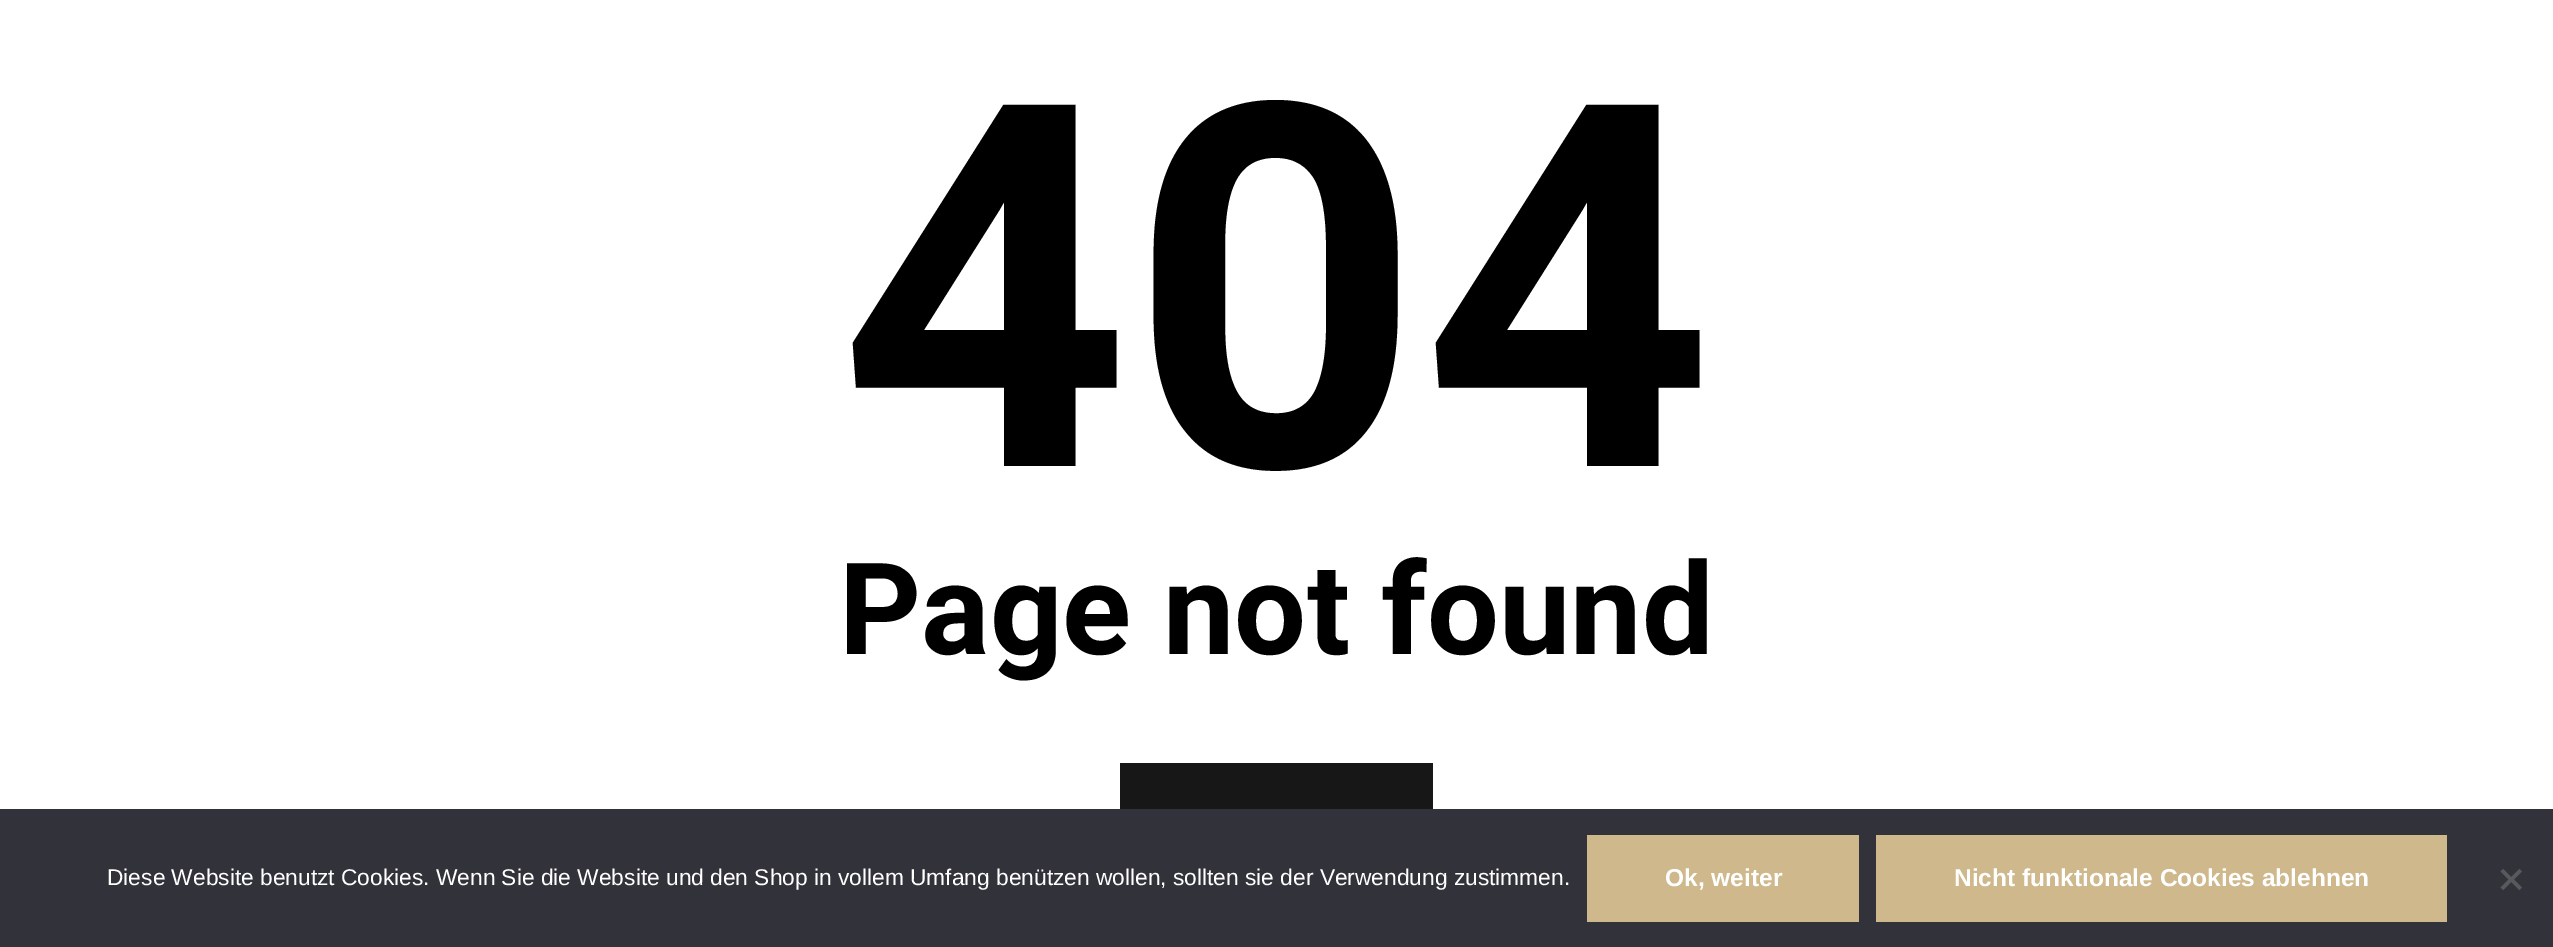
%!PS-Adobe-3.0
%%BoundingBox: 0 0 2553 947
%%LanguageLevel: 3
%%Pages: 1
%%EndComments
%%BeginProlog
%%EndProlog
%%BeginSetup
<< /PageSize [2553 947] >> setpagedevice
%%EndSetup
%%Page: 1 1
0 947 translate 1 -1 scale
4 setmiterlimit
1 setgray
0 0 2553 947 rectfill
0.09 setgray
1120 763 313 46 rectfill
0.196 0.196 0.227 setrgbcolor
0 809 2553 138 rectfill
0.812 0.725 0.549 setrgbcolor
1587 835 272 87 rectfill
1876 835 571 87 rectfill
0.349 0.349 0.365 setrgbcolor
newpath 2519.5 869 moveto 2522 871.5 lineto 2503 890 lineto 2500.5 887.5 lineto closepath fill
newpath 2500.5 871.5 moveto 2503 869 lineto 2522 887.5 lineto 2519.5 890 lineto closepath fill
/Roboto-Bold [508 0 0 -508 0 0] selectfont
0 setgray
839 466 moveto (404) show
/Roboto-Bold [127.5 0 0 -127.5 0 0] selectfont
839 654 moveto (Page not found) show
/LiberationSans-Regular [22.75 0 0 -22.75 0 0] selectfont
1 setgray
107 885 moveto (Diese Website benutzt Cookies. Wenn Sie die Website und den Shop in vollem Umfang benützen wollen, sollten sie der Verwendung zustimmen.) show
/LiberationSans-Bold [24.5 0 0 -24.5 0 0] selectfont
1665 886 moveto (Ok, weiter) show
1954 886 moveto (Nicht funktionale Cookies ablehnen) show
showpage
%%EOF
